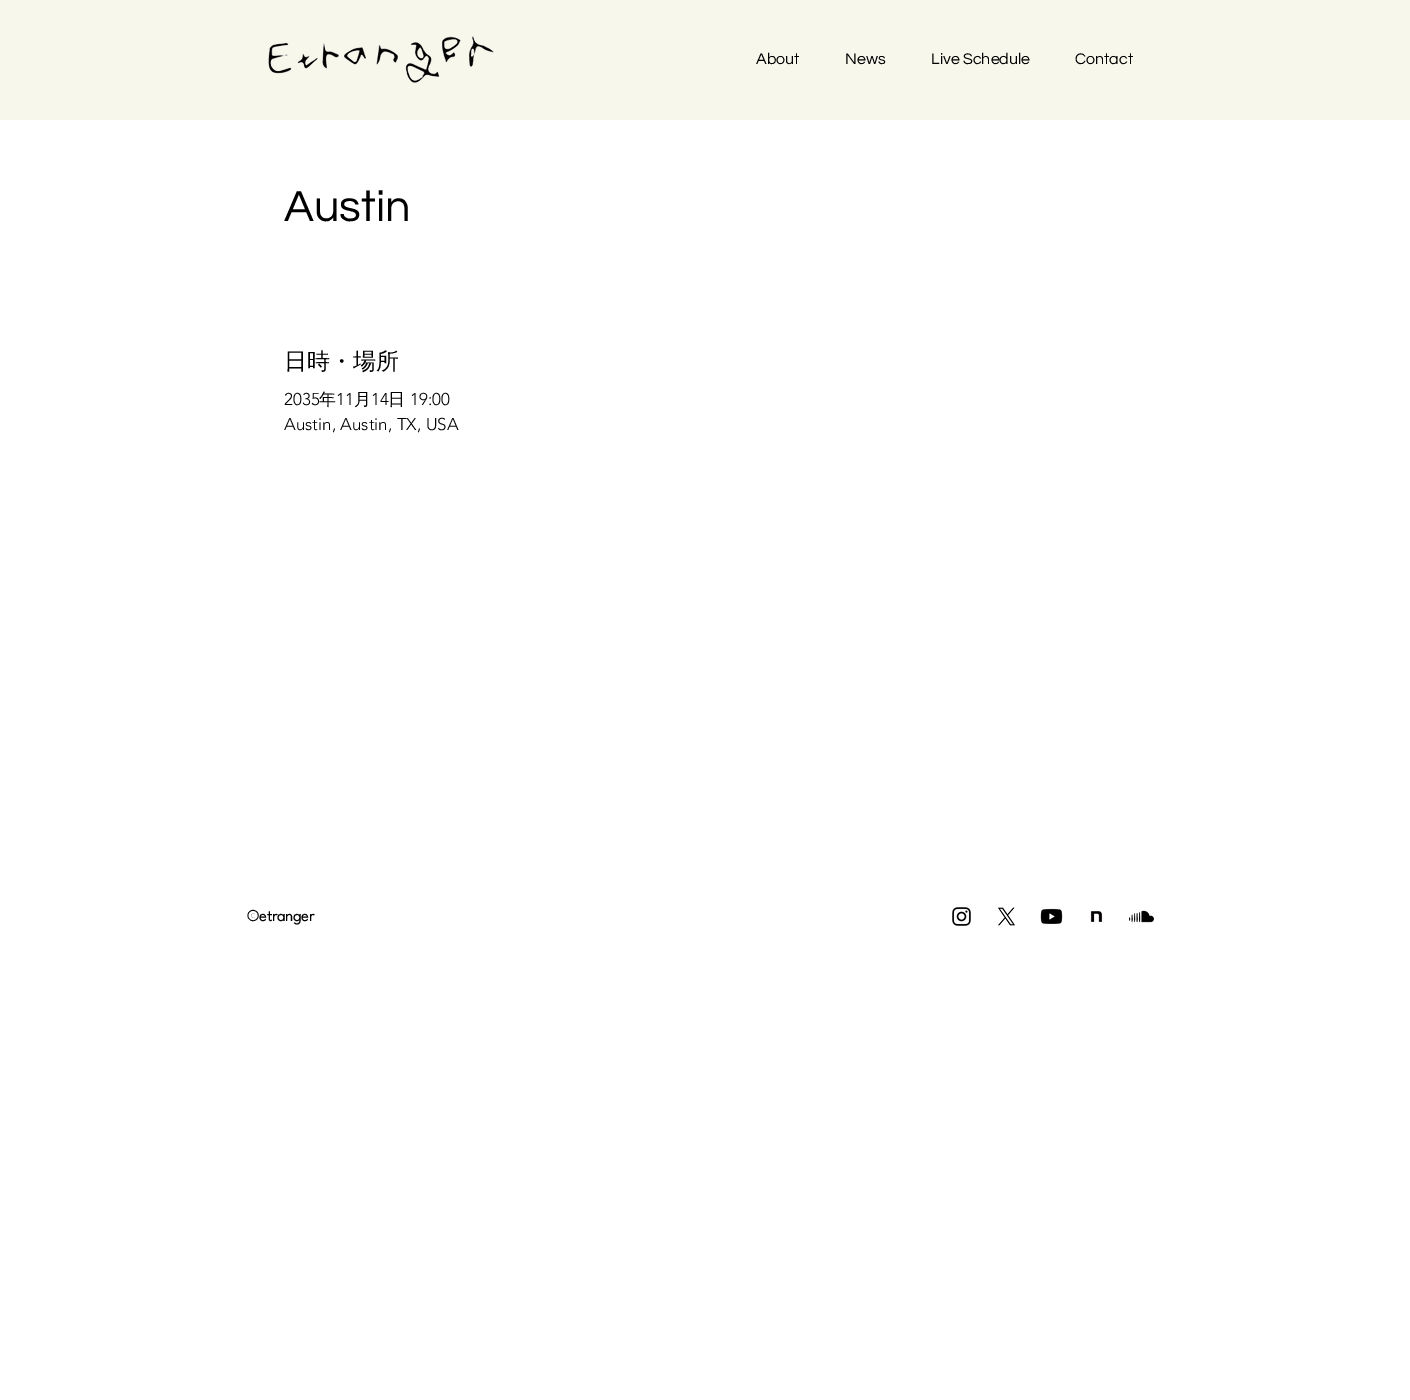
%!PS-Adobe-3.0
%%BoundingBox: 0 0 1410 1400
%%LanguageLevel: 3
%%Pages: 1
%%EndComments
%%BeginProlog
/drawimage { 5 dict begin { /h /w /y /x /name } { exch def } forall
  gsave x y translate w h scale
  w h 8 [w 0 0 h 0 0] name (r) file false 3 colorimage grestore end } def
%%EndProlog
%%BeginSetup
<< /PageSize [1410 1400] >> setpagedevice
%%EndSetup
%%Page: 1 1
0 1400 translate 1 -1 scale
4 setmiterlimit
1 setgray
0 0 1410 1400 rectfill
0.969 0.969 0.925 setrgbcolor
0 0 1410 120 rectfill
(images/1.raw) 268 36 226 47 drawimage
(images/2.raw) 952 907 19 19 drawimage
(images/3.raw) 998 907 17 19 drawimage
(images/4.raw) 1040 908 23 16 drawimage
(images/5.raw) 1090 910 13 12 drawimage
(images/6.raw) 1129 910 25 13 drawimage
/Questrial-Regular [16 0 0 -16 0 0] selectfont
0 setgray
756 64 moveto (About) show
845 64 moveto (News) show
931 64 moveto (Live Schedule) show
1075 64 moveto (Contact) show
/Questrial-Regular [45 0 0 -45 0 0] selectfont
284 221 moveto (Austin) show
/WenQuanYiZenHei-Medium [23 0 0 -23 0 0] selectfont
284 369 moveto (日時・場所) show
/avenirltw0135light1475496-Light [17 0 0 -17 0 0] selectfont
284 405 moveto (2035) show
/WenQuanYiZenHei-Medium [17 0 0 -17 0 0] selectfont
319 405 moveto (年) show
/avenirltw0135light1475496-Light [17 0 0 -17 0 0] selectfont
336 405 moveto (11) show
/WenQuanYiZenHei-Medium [17 0 0 -17 0 0] selectfont
354 405 moveto (月) show
/avenirltw0135light1475496-Light [17 0 0 -17 0 0] selectfont
371 405 moveto (14) show
/WenQuanYiZenHei-Medium [17 0 0 -17 0 0] selectfont
388 405 moveto (日) show
/avenirltw0135light1475496-Light [17 0 0 -17 0 0] selectfont
410 405 moveto (19:00) show
284 430 moveto (Austin, Austin, TX, USA) show
/LeagueSpartan-Bold [16 0 0 -16 0 0] selectfont
247 921 moveto (©etranger) show
showpage
%%EOF
